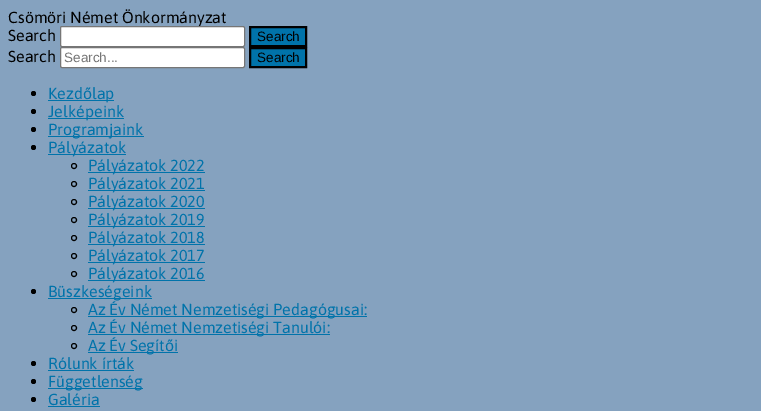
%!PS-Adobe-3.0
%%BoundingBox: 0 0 761 411
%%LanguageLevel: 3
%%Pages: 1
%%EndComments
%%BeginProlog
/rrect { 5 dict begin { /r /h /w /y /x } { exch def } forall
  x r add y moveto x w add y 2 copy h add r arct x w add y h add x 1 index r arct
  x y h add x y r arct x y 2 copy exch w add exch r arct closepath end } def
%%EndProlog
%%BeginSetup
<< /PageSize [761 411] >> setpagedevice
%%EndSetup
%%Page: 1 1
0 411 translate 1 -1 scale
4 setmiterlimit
0.522 0.635 0.749 setrgbcolor
0 0 761 411 rectfill
0 0.451 0.667 setrgbcolor
newpath 250 27 moveto 306 27 lineto 306 46 lineto 250 46 lineto closepath gsave fill grestore
0 setgray
2 setlinewidth
stroke
1 setgray
60.5 47.5 184 20 1.5 rrect gsave fill grestore
0.463 setgray
1 setlinewidth
stroke
0 0.451 0.667 setrgbcolor
newpath 250 48 moveto 306 48 lineto 306 67 lineto 250 67 lineto closepath gsave fill grestore
0 setgray
2 setlinewidth
stroke
newpath 33.5 93.5 2.5 0 360 arc closepath fill
0 0.451 0.667 setrgbcolor
48 100 66 1 rectfill
0 setgray
newpath 33.5 111.5 2.5 0 360 arc closepath fill
0 0.451 0.667 setrgbcolor
48 118 76 1 rectfill
0 setgray
newpath 33.5 129.5 2.5 0 360 arc closepath fill
0 0.451 0.667 setrgbcolor
48 136 96 1 rectfill
0 setgray
newpath 33.5 147.5 2.5 0 360 arc closepath fill
0 0.451 0.667 setrgbcolor
48 154 78 1 rectfill
0 setgray
1 setlinewidth
newpath 74 166 2.5 0 360 arc closepath stroke
0 0.451 0.667 setrgbcolor
88 172 117 1 rectfill
0 setgray
newpath 74 184 2.5 0 360 arc closepath stroke
0 0.451 0.667 setrgbcolor
88 190 117 1 rectfill
0 setgray
newpath 74 202 2.5 0 360 arc closepath stroke
0 0.451 0.667 setrgbcolor
88 208 117 1 rectfill
0 setgray
newpath 74 220 2.5 0 360 arc closepath stroke
0 0.451 0.667 setrgbcolor
88 226 117 1 rectfill
0 setgray
newpath 74 238 2.5 0 360 arc closepath stroke
0 0.451 0.667 setrgbcolor
88 244 117 1 rectfill
0 setgray
newpath 74 256 2.5 0 360 arc closepath stroke
0 0.451 0.667 setrgbcolor
88 262 117 1 rectfill
0 setgray
newpath 74 274 2.5 0 360 arc closepath stroke
0 0.451 0.667 setrgbcolor
88 280 117 1 rectfill
0 setgray
newpath 33.5 291.5 2.5 0 360 arc closepath fill
0 0.451 0.667 setrgbcolor
48 298 104 1 rectfill
0 setgray
newpath 74 310 2.5 0 360 arc closepath stroke
0 0.451 0.667 setrgbcolor
88 316 279 1 rectfill
0 setgray
newpath 74 328 2.5 0 360 arc closepath stroke
0 0.451 0.667 setrgbcolor
88 334 242 1 rectfill
0 setgray
newpath 74 346 2.5 0 360 arc closepath stroke
0 0.451 0.667 setrgbcolor
88 352 90 1 rectfill
0 setgray
newpath 33.5 363.5 2.5 0 360 arc closepath fill
0 0.451 0.667 setrgbcolor
48 370 86 1 rectfill
0 setgray
newpath 33.5 381.5 2.5 0 360 arc closepath fill
0 0.451 0.667 setrgbcolor
48 388 95 1 rectfill
0 setgray
newpath 33.5 399.5 2.5 0 360 arc closepath fill
0 0.451 0.667 setrgbcolor
48 406 52 1 rectfill
/Asap-Regular [16 0 0 -16 0 0] selectfont
0 setgray
8 23 moveto (Csömöri Német Önkormányzat) show
8 41 moveto (Search) show
1 setgray
60.5 26.5 184 20 1.5 rrect gsave fill grestore
0.463 setgray
stroke
/LiberationSans-Regular [13.5 0 0 -13.5 0 0] selectfont
0 setgray
257 41 moveto (Search) show
/Asap-Regular [16 0 0 -16 0 0] selectfont
8 62 moveto (Search) show
/LiberationSans-Regular [13.5 0 0 -13.5 0 0] selectfont
0.459 setgray
64 62 moveto (Search...) show
0 setgray
257 62 moveto (Search) show
/Asap-Regular [16 0 0 -16 0 0] selectfont
0 0.451 0.667 setrgbcolor
48 99 moveto (Kezdőlap) show
48 117 moveto (Jelképeink) show
48 135 moveto (Programjaink) show
48 153 moveto (Pályázatok) show
88 171 moveto (Pályázatok 2022) show
88 189 moveto (Pályázatok 2021) show
88 207 moveto (Pályázatok 2020) show
88 225 moveto (Pályázatok 2019) show
88 243 moveto (Pályázatok 2018) show
88 261 moveto (Pályázatok 2017) show
88 279 moveto (Pályázatok 2016) show
48 297 moveto (Büszkeségeink) show
88 315 moveto (Az Év Német Nemzetiségi Pedagógusai:) show
88 333 moveto (Az Év Német Nemzetiségi Tanulói:) show
88 351 moveto (Az Év Segítői) show
48 369 moveto (Rólunk írták) show
48 387 moveto (Függetlenség) show
48 405 moveto (Galéria) show
showpage
%%EOF
